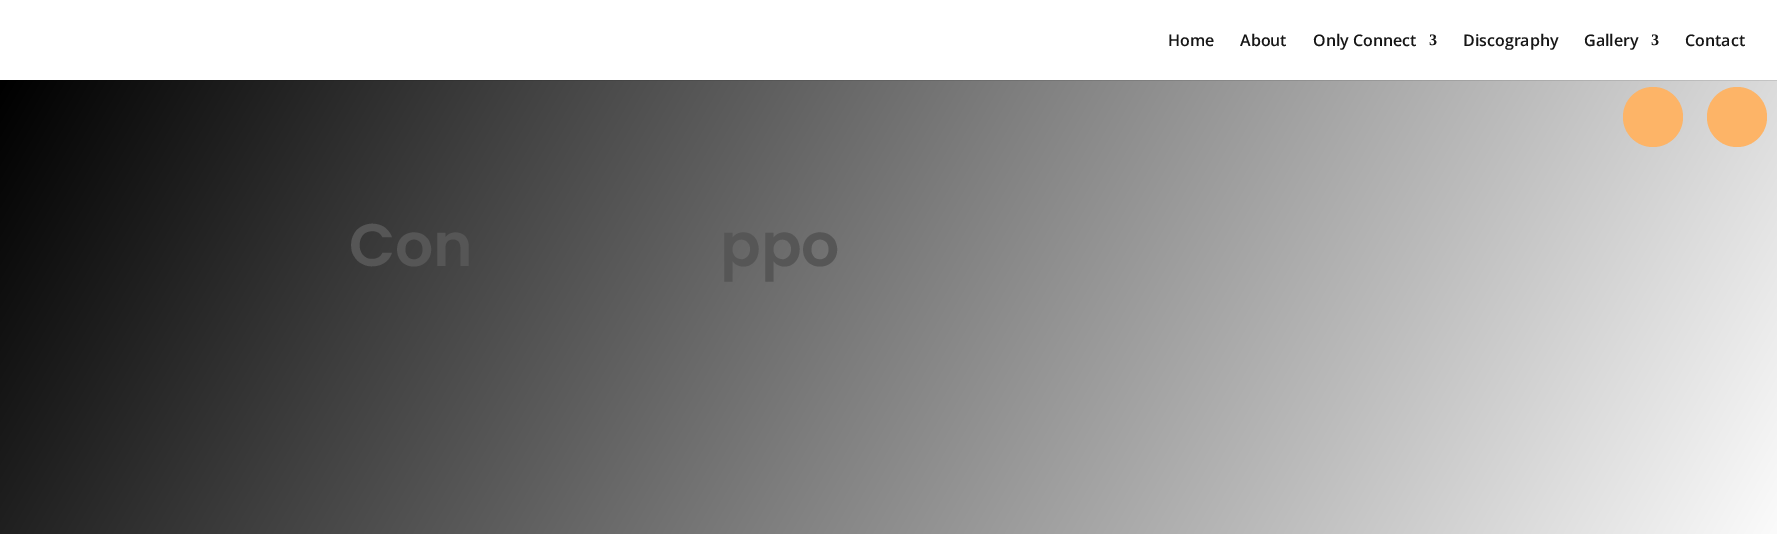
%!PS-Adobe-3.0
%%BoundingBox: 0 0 1777 534
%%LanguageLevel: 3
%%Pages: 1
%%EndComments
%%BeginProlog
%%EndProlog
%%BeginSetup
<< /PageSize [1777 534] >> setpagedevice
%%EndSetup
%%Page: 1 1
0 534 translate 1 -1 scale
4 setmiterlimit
1 setgray
0 0 1777 534 rectfill
gsave newpath 0 81 moveto 1777 81 lineto 1777 534 lineto 0 534 lineto closepath clip newpath
<< /ShadingType 2 /ColorSpace /DeviceRGB /Coords [112 -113 1665 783] /Extend [true true] /Function << /FunctionType 2 /Domain [0 1] /C0 [0 0 0] /C1 [1 1 1] /N 1 >> >> shfill grestore
gsave newpath 0 80 moveto 1777 80 lineto 1777 81 lineto 0 81 lineto closepath clip newpath
<< /ShadingType 2 /ColorSpace /DeviceRGB /Coords [112 -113 1665 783] /Extend [true true] /Function << /FunctionType 2 /Domain [0 1] /C0 [0 0 0] /C1 [0.902 0.902 0.902] /N 1 >> >> shfill grestore
0.992 0.706 0.404 setrgbcolor
newpath 1653 117 30 0 360 arc closepath fill
newpath 1737 117 30 0 360 arc closepath fill
/OpenSans-SemiBold [16 0 0 -16 0 0] selectfont
0.086 setgray
1168 46 moveto (Home) show
1240 46 moveto (About) show
1313 46 moveto (Only Connect) show
/LiberationSerif-Bold [16 0 0 -16 0 0] selectfont
1429 45 moveto (3) show
/OpenSans-SemiBold [16 0 0 -16 0 0] selectfont
1463 46 moveto (Discography) show
1584 46 moveto (Gallery) show
/LiberationSerif-Bold [16 0 0 -16 0 0] selectfont
1651 45 moveto (3) show
/OpenSans-SemiBold [16 0 0 -16 0 0] selectfont
1685 46 moveto (Contact) show
/Poppins-SemiBold [60 0 0 -60 0 0] selectfont
0.337 setgray
349 266 moveto (Con) show
720 266 moveto (ppo) show
showpage
%%EOF
